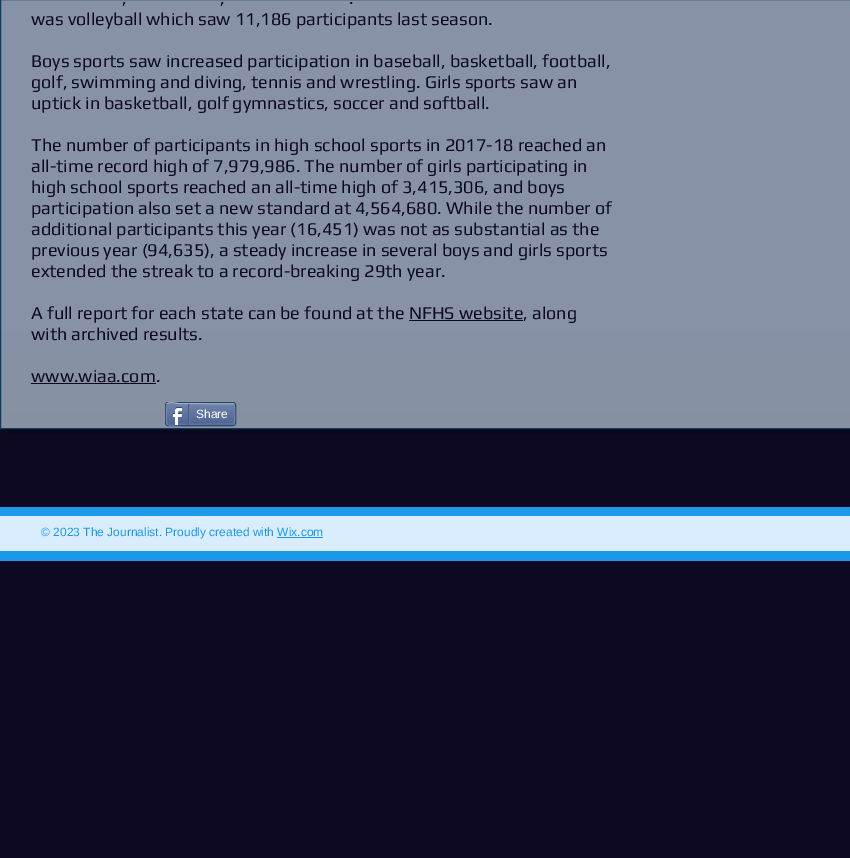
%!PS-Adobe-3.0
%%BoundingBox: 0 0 850 858
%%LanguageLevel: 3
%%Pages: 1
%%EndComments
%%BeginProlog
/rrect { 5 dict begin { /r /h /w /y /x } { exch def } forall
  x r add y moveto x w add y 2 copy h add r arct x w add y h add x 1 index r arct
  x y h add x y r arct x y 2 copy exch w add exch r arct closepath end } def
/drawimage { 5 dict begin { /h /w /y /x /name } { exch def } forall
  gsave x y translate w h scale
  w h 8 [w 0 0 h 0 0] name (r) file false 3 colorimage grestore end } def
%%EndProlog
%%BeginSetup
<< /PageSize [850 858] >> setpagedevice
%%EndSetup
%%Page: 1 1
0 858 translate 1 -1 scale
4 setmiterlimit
0.051 0.035 0.137 setrgbcolor
0 0 850 858 rectfill
0.533 0.573 0.655 setrgbcolor
1 0 849 428 rectfill
(images/1.raw) 0 332 35 102 drawimage
(images/2.raw) 35 332 815 102 drawimage
0.047 0.235 0.376 setrgbcolor
0.5 -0.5 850 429 rectstroke
0.051 0.035 0.137 setrgbcolor
409 320 114 1 rectfill
31 383 125 1 rectfill
0.176 0.271 0.396 setrgbcolor
165.5 402.5 70 23 2.5 rrect stroke
(images/3.raw) 166 404 69 21 drawimage
0.604 0.671 0.776 setrgbcolor
newpath 167 404 moveto 170 401 175 403.5 179 403.5 curveto 234 404 lineto stroke
0.435 0.514 0.678 setrgbcolor
newpath 234 404 moveto 235 404.5 235 423.5 234 424 curveto stroke
0.38 0.463 0.639 setrgbcolor
newpath 234 424 moveto 179 424.5 lineto 175 424.5 170 427 167 424 curveto stroke
0.435 0.514 0.678 setrgbcolor
newpath 167 424 moveto 166 423.5 166 404.5 167 404 curveto stroke
(images/4.raw) 172 407 10 18 drawimage
0.259 0.369 0.522 setrgbcolor
188 404 1 21 rectfill
0.38 0.463 0.639 setrgbcolor
189 404 1 20 rectfill
0.106 0.6 0.91 setrgbcolor
0 507 850 54 rectfill
0.855 0.929 1 setrgbcolor
0 516 850 35 rectfill
0.106 0.6 0.91 setrgbcolor
277 537 46 1 rectfill
/Play-Regular [18 0 0 -18 0 0] selectfont
0.051 0.035 0.137 setrgbcolor
122 4 moveto (,) show
220 4 moveto (,) show
349 4 moveto (.) show
31 25 moveto (was volleyball which saw 11,186 participants last season.) show
31 67 moveto (Boys sports saw increased participation in baseball, basketball, football,) show
31 88 moveto (golf, swimming and diving, tennis and wrestling. Girls sports saw an) show
31 109 moveto (uptick in basketball, golf gymnastics, soccer and softball.) show
31 151 moveto (The number of participants in high school sports in 2017-18 reached an) show
31 172 moveto (all-time record high of 7,979,986. The number of girls participating in) show
31 193 moveto (high school sports reached an all-time high of 3,415,306, and boys) show
31 214 moveto (participation also set a new standard at 4,564,680. While the number of) show
31 235 moveto (additional participants this year \(16,451\) was not as substantial as the) show
31 256 moveto (previous year \(94,635\), a steady increase in several boys and girls sports) show
31 277 moveto (extended the streak to a record-breaking 29th year.) show
31 319 moveto (A full report for each state can be found at the NFHS website, along) show
31 340 moveto (with archived results.) show
31 382 moveto (www.wiaa.com.) show
/LiberationSans-Regular [12 0 0 -12 0 0] selectfont
1 setgray
196 418 moveto (Share) show
0.106 0.6 0.91 setrgbcolor
41 536 moveto (© 2023 The Journalist. Proudly created with Wix.com) show
showpage
%%EOF
